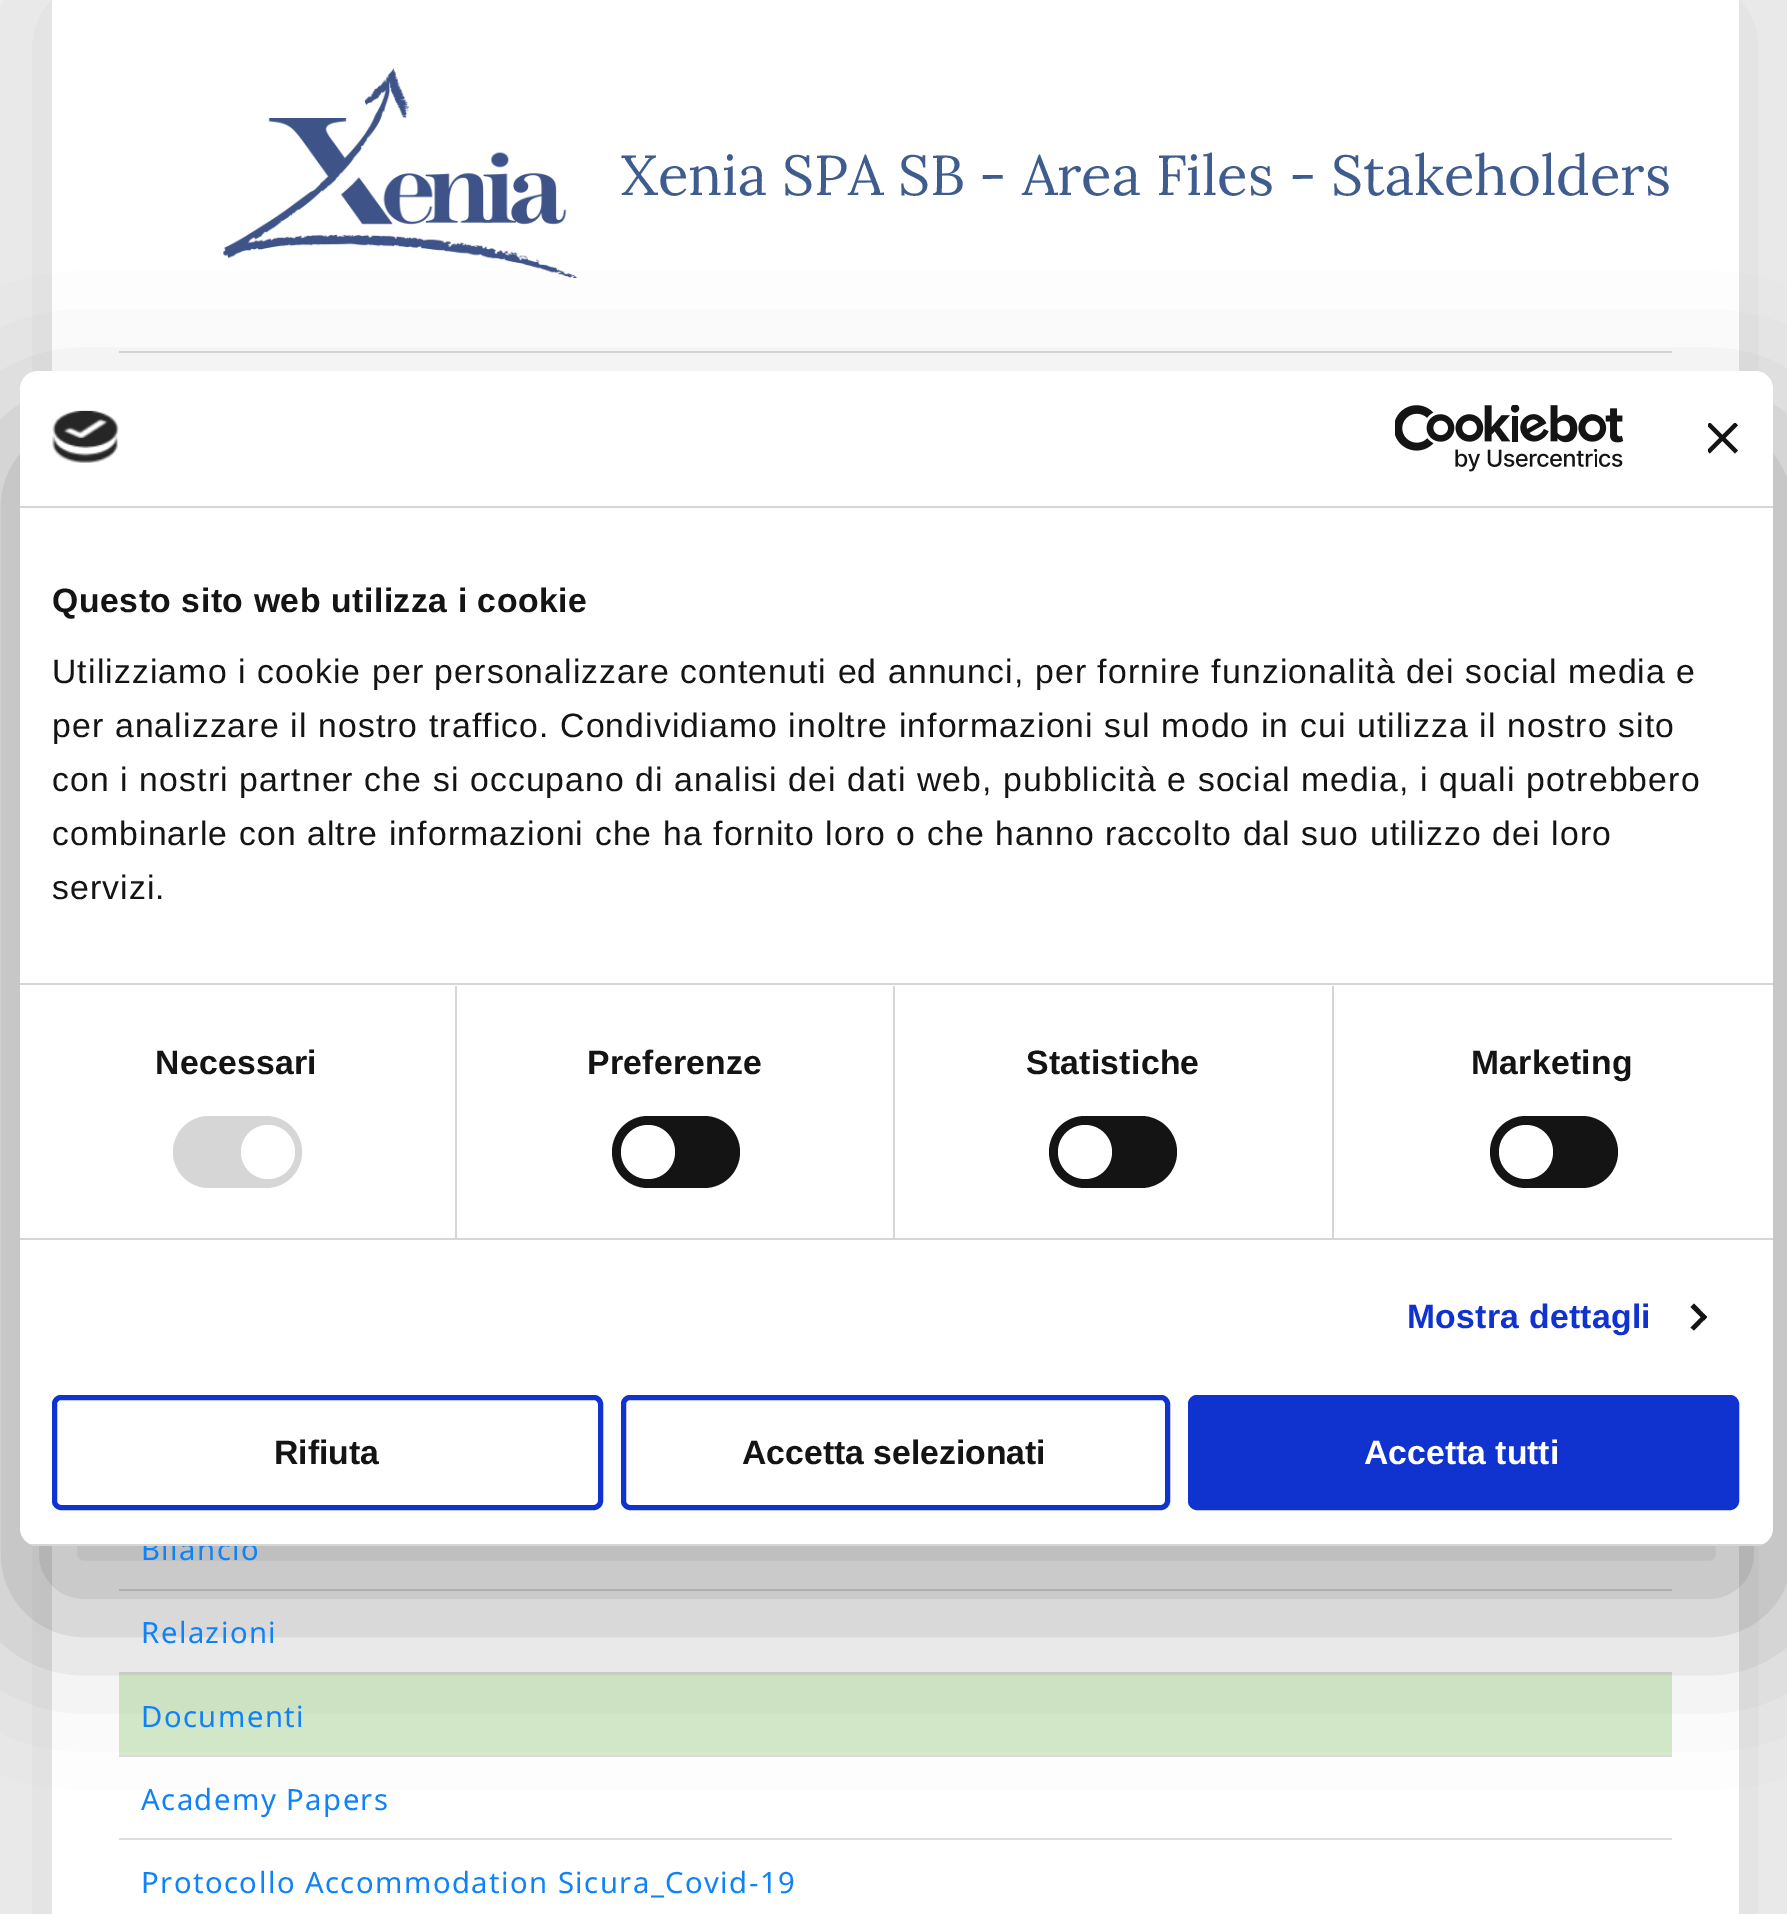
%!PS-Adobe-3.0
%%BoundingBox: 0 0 1787 1914
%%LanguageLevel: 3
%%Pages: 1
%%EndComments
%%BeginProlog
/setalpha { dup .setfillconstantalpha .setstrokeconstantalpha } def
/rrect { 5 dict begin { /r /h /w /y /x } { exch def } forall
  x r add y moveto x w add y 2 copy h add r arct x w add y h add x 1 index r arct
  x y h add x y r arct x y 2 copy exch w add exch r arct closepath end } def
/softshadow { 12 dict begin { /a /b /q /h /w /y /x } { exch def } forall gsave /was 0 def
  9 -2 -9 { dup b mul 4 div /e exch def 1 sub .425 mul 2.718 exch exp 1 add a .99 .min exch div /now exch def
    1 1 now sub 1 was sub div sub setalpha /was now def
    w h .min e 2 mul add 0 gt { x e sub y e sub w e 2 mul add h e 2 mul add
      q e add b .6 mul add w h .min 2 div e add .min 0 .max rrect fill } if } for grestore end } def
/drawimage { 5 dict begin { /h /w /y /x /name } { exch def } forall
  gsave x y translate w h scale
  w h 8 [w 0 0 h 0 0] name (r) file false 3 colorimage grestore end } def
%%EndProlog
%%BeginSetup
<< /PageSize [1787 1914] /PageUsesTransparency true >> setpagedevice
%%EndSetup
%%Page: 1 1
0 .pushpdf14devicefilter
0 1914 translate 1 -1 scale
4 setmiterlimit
0.945 setgray
0 0 1787 1914 rectfill
0 setgray
52 0 1687 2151 0 79 0.1 softshadow
1 setgray
52 0 1687 1914 rectfill
0.867 setgray
119 351 1553 2 rectfill
(images/1.raw) 223 67 355 211 drawimage
119 1589 1553 2 rectfill
119 1672 1553 2 rectfill
0.839 0.925 0.8 setrgbcolor
119 1674 1553 81 rectfill
0.867 setgray
119 1755 1553 2 rectfill
119 1838 1553 2 rectfill
0 setgray
20 443 1753 1175 18 76.5 0.3 softshadow
/Lora-Regular [56.25 0 0 -56.25 0 0] selectfont
0.247 0.361 0.557 setrgbcolor
621 195 moveto (Xenia SPA SB - Area Files - Stakeholders) show
/NotoSans-Regular [29.25 0 0 -29.25 0 0] selectfont
0.063 0.51 0.969 setrgbcolor
141 1560 moveto 1.45 0 (Bilancio) ashow
141 1643 moveto 1.45 0 (Relazioni) ashow
141 1727 moveto 1.45 0 (Documenti) ashow
141 1810 moveto 1.45 0 (Academy Papers) ashow
141 1893 moveto 1.45 0 (Protocollo Accommodation Sicura_Covid-19) ashow
1 setgray
20 371 1753 1175 18 rrect fill
0.839 setgray
20 506 1753 2 rectfill
(images/2.raw) 52 410 67 53 drawimage
(images/3.raw) 1395 405 229 67 drawimage
(images/4.raw) 1708 423 30 31 drawimage
20 983 1753 2 rectfill
/LiberationSans-Bold [33.75 0 0 -33.75 0 0] selectfont
0.078 setgray
52 612 moveto 0.55 0 (Questo sito web utilizza i cookie) ashow
/LiberationSans-Regular [33.75 0 0 -33.75 0 0] selectfont
52 683 moveto 1.12 0 (Utilizziamo i cookie per personalizzare contenuti ed annunci, per fornire funzionalità dei social media e) ashow
52 737 moveto 1.12 0 (per analizzare il nostro traffico. Condividiamo inoltre informazioni sul modo in cui utilizza il nostro sito) ashow
52 791 moveto 1.12 0 (con i nostri partner che si occupano di analisi dei dati web, pubblicità e social media, i quali potrebbero) ashow
52 845 moveto 1.12 0 (combinarle con altre informazioni che ha fornito loro o che hanno raccolto dal suo utilizzo dei loro) ashow
52 899 moveto 1.12 0 (servizi.) ashow
0.839 setgray
20 1238 1753 2 rectfill
455 986 2 252 rectfill
/LiberationSans-Bold [33.75 0 0 -33.75 0 0] selectfont
0.078 setgray
155 1074 moveto 0.25 0 (Necessari) ashow
0.839 setgray
173 1116 129 72 36 rrect fill
1 setgray
newpath 268 1152 27 0 360 arc closepath fill
0.839 setgray
893 986 2 252 rectfill
0.078 setgray
587 1074 moveto 0.25 0 (Preferenze) ashow
612 1116 128 72 36 rrect fill
1 setgray
newpath 648 1152 27 0 360 arc closepath fill
0.839 setgray
1332 986 2 252 rectfill
0.078 setgray
1026 1074 moveto 0.25 0 (Statistiche) ashow
1049 1116 128 72 36 rrect fill
1 setgray
newpath 1085 1152 27 0 360 arc closepath fill
0.078 setgray
1471 1074 moveto 0.25 0 (Marketing) ashow
1490 1116 128 72 36 rrect fill
1 setgray
newpath 1526 1152 27 0 360 arc closepath fill
0.063 0.196 0.812 setrgbcolor
1407 1328 moveto 0.25 0 (Mostra dettagli) ashow
0.078 setgray
newpath 1694 1303.5 moveto 1707 1317 lineto 1704 1320.5 lineto 1690.5 1307 lineto closepath fill
newpath 1704 1314 moveto 1707 1317 lineto 1694 1330.5 lineto 1690.5 1327.5 lineto closepath fill
gsave
20 371 1753 1175 18 rrect clip newpath
0.839 setgray
30 1544 1733 2 rectfill
grestore
0.063 0.196 0.812 setrgbcolor
5 setlinewidth
54.5 1397.5 546 110 6.5 rrect stroke
0.078 setgray
274 1464 moveto (Rifiuta) show
0.063 0.196 0.812 setrgbcolor
623.5 1397.5 544 110 6.5 rrect stroke
0.078 setgray
742 1464 moveto (Accetta selezionati) show
0.063 0.196 0.812 setrgbcolor
1190.5 1397.5 546 110 6.5 rrect gsave fill grestore
stroke
1 setgray
1364 1464 moveto (Accetta tutti) show
.poppdf14devicefilter showpage
%%EOF
